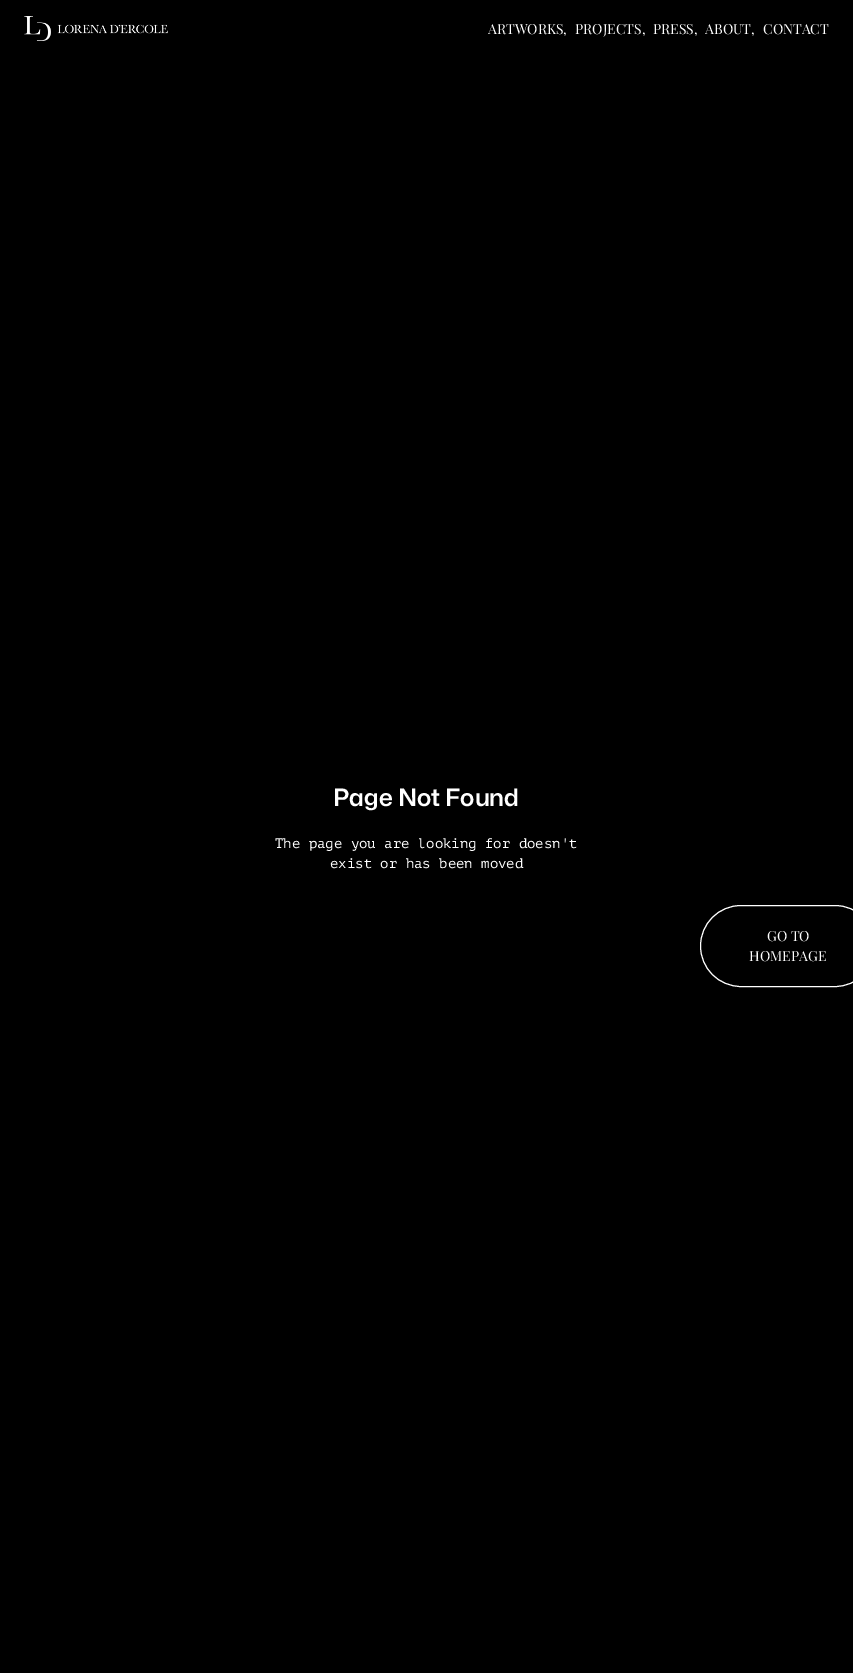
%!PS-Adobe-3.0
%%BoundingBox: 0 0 853 1673
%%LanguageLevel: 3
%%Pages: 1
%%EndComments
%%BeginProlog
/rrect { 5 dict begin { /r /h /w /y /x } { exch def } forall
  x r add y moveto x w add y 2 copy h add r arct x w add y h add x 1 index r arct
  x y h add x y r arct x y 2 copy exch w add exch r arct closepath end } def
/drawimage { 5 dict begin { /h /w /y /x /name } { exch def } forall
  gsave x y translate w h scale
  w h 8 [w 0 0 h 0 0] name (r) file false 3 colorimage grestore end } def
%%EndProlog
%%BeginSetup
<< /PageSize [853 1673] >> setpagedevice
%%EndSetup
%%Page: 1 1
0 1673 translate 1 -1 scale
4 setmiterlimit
0 setgray
0 0 853 1673 rectfill
(images/1.raw) 24 16 144 25 drawimage
1 setgray
700.5 905.5 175 81 40.5 rrect stroke
/PlayfairDisplay-Regular [14 0 0 -14 0 0] selectfont
488 34 moveto (ARTWORKS,) show
575 34 moveto (PROJECTS,) show
653 34 moveto (PRESS,) show
705 34 moveto (ABOUT,) show
763 34 moveto (CONTACT) show
/MonaSans-SemiBold [24 0 0 -24 0 0] selectfont
333 806 moveto (Page Not Found) show
/PTMono-Regular [14 0 0 -14 0 0] selectfont
275 848 moveto (The page you are looking for doesn't) show
330 868 moveto (exist or has been moved) show
/PlayfairDisplay-Regular [14 0 0 -14 0 0] selectfont
767 941 moveto (GO TO) show
749 961 moveto (HOMEPAGE) show
showpage
%%EOF
